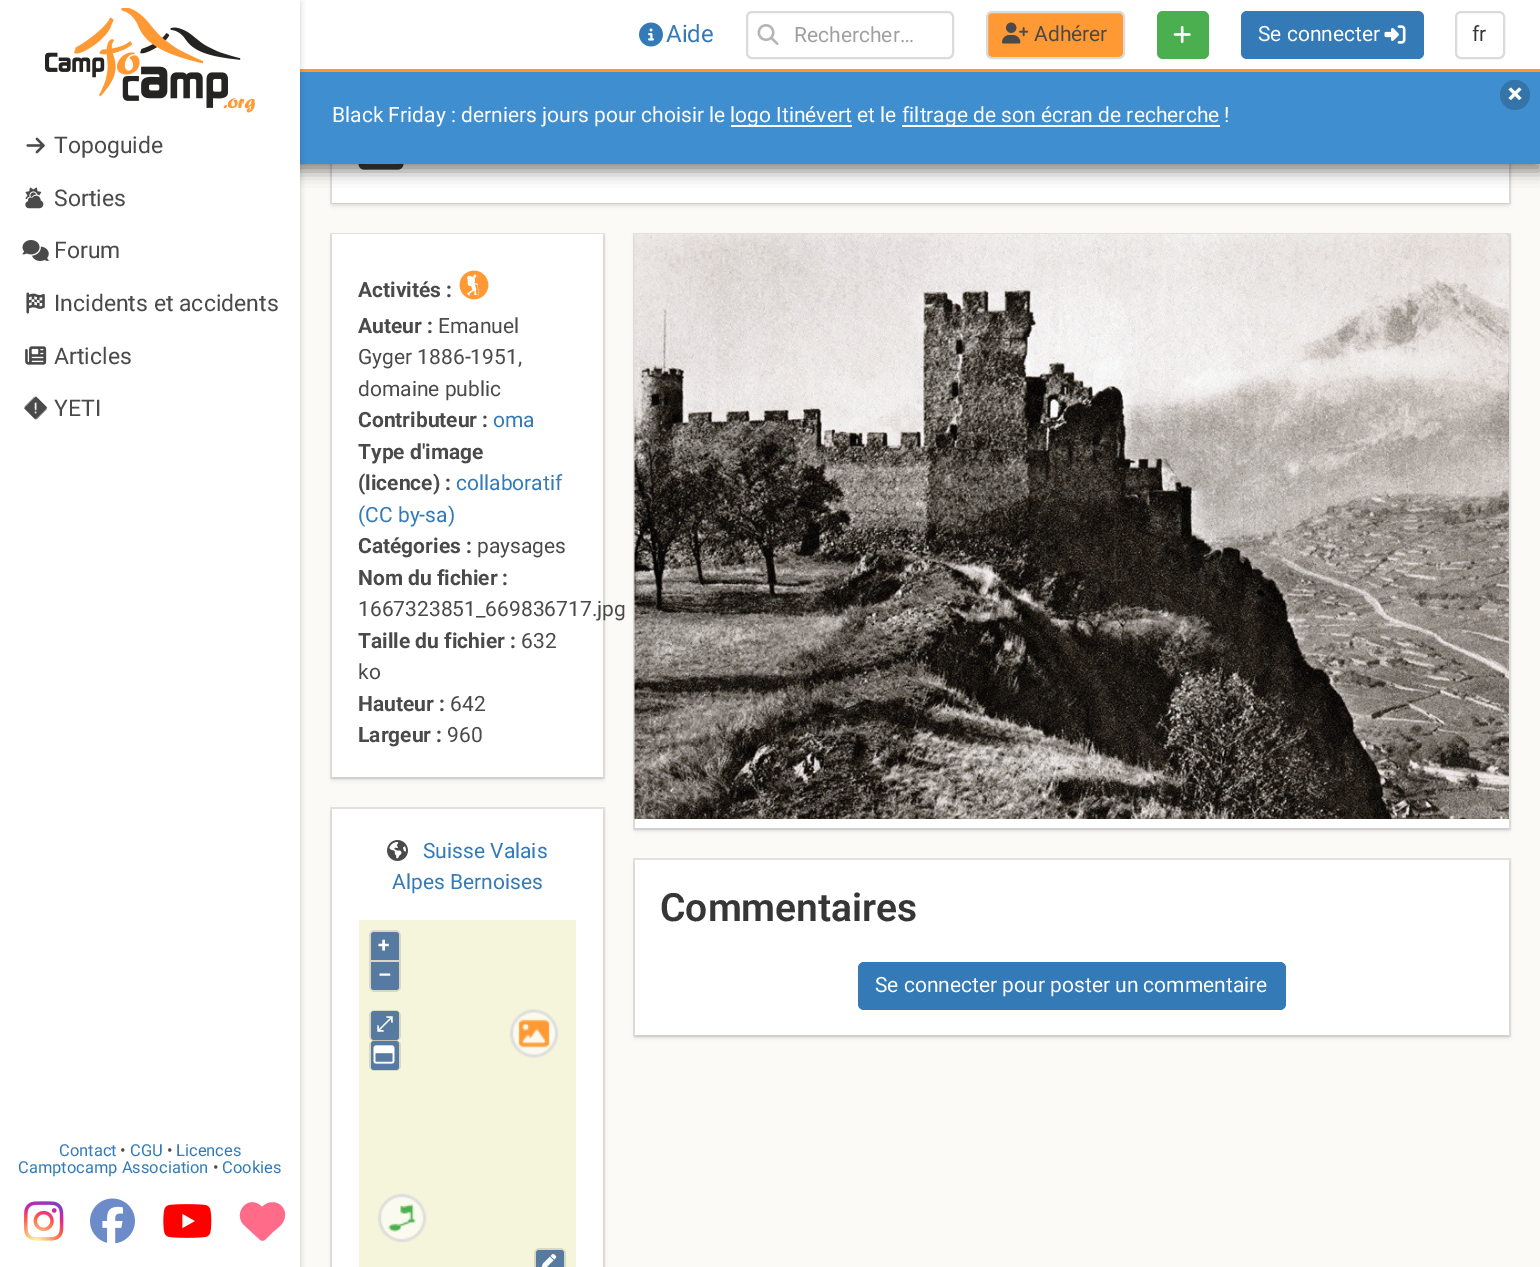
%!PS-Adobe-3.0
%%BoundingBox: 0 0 1540 1267
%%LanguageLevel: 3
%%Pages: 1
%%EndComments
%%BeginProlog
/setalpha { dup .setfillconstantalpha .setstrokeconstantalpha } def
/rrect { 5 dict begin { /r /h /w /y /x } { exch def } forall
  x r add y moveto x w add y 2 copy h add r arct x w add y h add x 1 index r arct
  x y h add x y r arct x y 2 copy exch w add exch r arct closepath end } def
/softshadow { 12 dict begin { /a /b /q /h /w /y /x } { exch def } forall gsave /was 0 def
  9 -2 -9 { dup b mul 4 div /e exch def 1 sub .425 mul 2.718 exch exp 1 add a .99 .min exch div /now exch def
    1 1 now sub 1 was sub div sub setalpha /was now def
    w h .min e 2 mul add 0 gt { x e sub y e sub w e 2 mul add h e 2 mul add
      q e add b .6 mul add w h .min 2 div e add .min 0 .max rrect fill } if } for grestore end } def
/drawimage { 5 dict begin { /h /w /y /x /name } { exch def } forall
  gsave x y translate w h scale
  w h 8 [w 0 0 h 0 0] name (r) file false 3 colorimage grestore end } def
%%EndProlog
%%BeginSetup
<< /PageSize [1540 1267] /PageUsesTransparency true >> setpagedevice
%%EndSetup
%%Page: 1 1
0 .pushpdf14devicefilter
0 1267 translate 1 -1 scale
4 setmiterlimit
0.984 0.98 0.965 setrgbcolor
0 0 1540 1267 rectfill
0.89 0.886 0.871 setrgbcolor
2 setlinewidth
331 100 1179 103 rectstroke
0.039 setgray
332 104 1177 102 0 2 0.1 softshadow
1 setgray
332 164 1177 39 rectfill
(images/18.raw) 358 164 46 6 drawimage
0.039 setgray
0 77 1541 94 0 7.5 0.5 softshadow
1 0.6 0.2 setrgbcolor
newpath 0 69 moveto 0 72 lineto 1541 72 lineto 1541 3 lineto 1540 3 lineto 1540 69 lineto closepath fill
1 setgray
300 0 1240 69 rectfill
(images/1.raw) 639 22 24 25 drawimage
0.859 setgray
747 12 206 46 5 rrect stroke
(images/2.raw) 757 24 22 21 drawimage
1 0.6 0.2 setrgbcolor
987 12 137 46 5 rrect gsave fill grestore
0.859 setgray
stroke
(images/3.raw) 1002 22 27 22 drawimage
0.294 0.686 0.314 setrgbcolor
1157 11 52 48 6 rrect fill
(images/4.raw) 1173 26 18 17 drawimage
0.2 0.478 0.718 setrgbcolor
1241 11 183 48 6 rrect fill
(images/5.raw) 1384 25 22 19 drawimage
0.859 setgray
1456 12 48 46 5 rrect stroke
0.243 0.557 0.816 setrgbcolor
300 72 1240 92 rectfill
0.204 0.455 0.659 setrgbcolor
newpath 1515 95 15 0 360 arc closepath fill
1 setgray
newpath 1511 87.5 moveto 1521.5 98 lineto 1519 100 lineto 1508.5 89.5 lineto closepath fill
newpath 1519 87.5 moveto 1521.5 89.5 lineto 1511 100 lineto 1508.5 98 lineto closepath fill
731 125 121 2 rectfill
902 125 318 2 rectfill
0 setgray
0 2 300 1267 0 3 0.2 softshadow
1 setgray
0 0 300 1267 rectfill
(images/6.raw) 45 8 210 105 drawimage
(images/7.raw) 26 137 19 17 drawimage
(images/8.raw) 25 187 17 13 drawimage
(images/9.raw) 27 194 15 8 drawimage
(images/10.raw) 25 195 19 14 drawimage
(images/11.raw) 22 240 27 21 drawimage
(images/12.raw) 26 292 19 22 drawimage
(images/13.raw) 25 346 22 19 drawimage
(images/14.raw) 23 396 25 24 drawimage
(images/15.raw) 24 1201 40 40 drawimage
(images/16.raw) 90 1198 45 46 drawimage
(images/17.raw) 163 1204 49 34 drawimage
1 0.42 0.537 setrgbcolor
newpath 244 1225 moveto 257 1237 lineto 262 1242 263 1242 268 1237 curveto 273 1232 lineto 276 1229 281 1226 283 1222 curveto 291 1208 274 1195 262 1207 curveto 249 1193 232 1213 244 1225 curveto closepath fill
0.89 0.886 0.871 setrgbcolor
331 234 273 544 rectstroke
0.039 setgray
332 237 271 543 0 2 0.1 softshadow
1 setgray
332 234 271 543 rectfill
(images/19.raw) 459 270 30 30 drawimage
0.89 0.886 0.871 setrgbcolor
331 808 273 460 rectstroke
0.039 setgray
332 812 271 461 0 2 0.1 softshadow
1 setgray
332 809 271 458 rectfill
(images/20.raw) 387 840 21 21 drawimage
0.961 0.961 0.863 setrgbcolor
359 920 217 347 rectfill
0.847 0.847 0.773 setrgbcolor
369 930 32 62 6 rrect fill
0.337 0.478 0.627 setrgbcolor
newpath 374 932 moveto 396 932 lineto 397.5 932 399 933.5 399 935 curveto 399 960 lineto 371 960 lineto 371 935 lineto 371 933.5 372.5 932 374 932 curveto closepath fill
newpath 371 962 moveto 399 962 lineto 399 987 lineto 399 988.5 397.5 990 396 990 curveto 374 990 lineto 372.5 990 371 988.5 371 987 curveto closepath fill
(images/23.raw) 378 1009 181 234 drawimage
0.847 0.847 0.773 setrgbcolor
369 1010 32 31 6 rrect fill
0.337 0.478 0.627 setrgbcolor
371 1011 28 29 3 rrect fill
0.25 setalpha
0.502 setgray
369 1040 32 31 6 rrect fill
1 setalpha
0.337 0.478 0.627 setrgbcolor
371 1041 28 29 3 rrect fill
(images/21.raw) 373 1045 22 19 drawimage
0.847 0.847 0.773 setrgbcolor
534 1248 32 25 6 rrect fill
0.337 0.478 0.627 setrgbcolor
536 1250 28 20 3 rrect fill
(images/22.raw) 541 1254 16 13 drawimage
0.89 0.886 0.871 setrgbcolor
634 234 876 595 rectstroke
0.039 setgray
635 237 874 594 0 2 0.1 softshadow
1 setgray
635 819 874 9 rectfill
(images/24.raw) 634 234 875 585 drawimage
0.89 0.886 0.871 setrgbcolor
634 859 876 177 rectstroke
0.039 setgray
635 863 874 175 0 2 0.1 softshadow
1 setgray
635 860 874 175 rectfill
0.2 0.478 0.718 setrgbcolor
858 962 428 48 6 rrect fill
/Roboto-Regular [24 0 0 -24 0 0] selectfont
666 42 moveto (Aide) show
/Roboto-Regular [21 0 0 -21 0 0] selectfont
0.627 setgray
794 42 moveto (Rechercher…) show
0.29 setgray
1034 41 moveto (Adhérer) show
1 setgray
1258 41 moveto (Se connecter) show
0.212 setgray
1472 41 moveto (fr) show
1 setgray
332 122 moveto (Black Friday : derniers jours pour choisir le) show
730 122 moveto (logo Itinévert et le) show
902 122 moveto (filtrage de son écran de recherche !) show
/Roboto-Regular [23 0 0 -23 0 0] selectfont
0.29 setgray
54 153 moveto (Topoguide) show
54 206 moveto (Sorties) show
54 258 moveto (Forum) show
54 311 moveto (Incidents et accidents) show
54 364 moveto (Articles) show
54 416 moveto (YETI) show
/Roboto-Regular [16.5 0 0 -16.5 0 0] selectfont
0.2 0.478 0.718 setrgbcolor
59 1156 moveto (Contact) show
0.29 setgray
120 1156 moveto (•) show
0.2 0.478 0.718 setrgbcolor
130 1156 moveto (CGU) show
0.29 setgray
167 1156 moveto (•) show
0.2 0.478 0.718 setrgbcolor
176 1156 moveto (Licences) show
18 1173 moveto (Camptocamp Association) show
0.29 setgray
213 1173 moveto (•) show
0.2 0.478 0.718 setrgbcolor
222 1173 moveto (Cookies) show
/Roboto-Bold [21 0 0 -21 0 0] selectfont
0.29 setgray
358 297 moveto (Activités :) show
358 333 moveto (Auteur :) show
/Roboto-Regular [21 0 0 -21 0 0] selectfont
438 333 moveto (Emanuel) show
358 364 moveto (Gyger 1886-1951,) show
358 396 moveto (domaine public) show
/Roboto-Bold [21 0 0 -21 0 0] selectfont
358 427 moveto (Contributeur :) show
/Roboto-Regular [21 0 0 -21 0 0] selectfont
0.2 0.478 0.718 setrgbcolor
493 427 moveto (oma) show
/Roboto-Bold [21 0 0 -21 0 0] selectfont
0.29 setgray
358 459 moveto (Type d'image) show
358 490 moveto (\(licence\) :) show
/Roboto-Regular [21 0 0 -21 0 0] selectfont
0.2 0.478 0.718 setrgbcolor
456 490 moveto (collaboratif) show
358 522 moveto (\(CC by-sa\)) show
/Roboto-Bold [21 0 0 -21 0 0] selectfont
0.29 setgray
358 553 moveto (Catégories :) show
/Roboto-Regular [21 0 0 -21 0 0] selectfont
477 553 moveto (paysages) show
/Roboto-Bold [21 0 0 -21 0 0] selectfont
358 585 moveto (Nom du fichier :) show
/Roboto-Regular [21 0 0 -21 0 0] selectfont
358 616 moveto (1667323851_669836717.jpg) show
/Roboto-Bold [21 0 0 -21 0 0] selectfont
358 648 moveto (Taille du fichier :) show
/Roboto-Regular [21 0 0 -21 0 0] selectfont
521 648 moveto (632) show
358 679 moveto (ko) show
/Roboto-Bold [21 0 0 -21 0 0] selectfont
358 711 moveto (Hauteur :) show
/Roboto-Regular [21 0 0 -21 0 0] selectfont
450 711 moveto (642) show
/Roboto-Bold [21 0 0 -21 0 0] selectfont
358 742 moveto (Largeur :) show
/Roboto-Regular [21 0 0 -21 0 0] selectfont
447 742 moveto (960) show
0.2 0.478 0.718 setrgbcolor
423 858 moveto (Suisse Valais) show
392 889 moveto (Alpes Bernoises) show
/Roboto-Bold [21 0 0 -21 0 0] selectfont
1 setgray
378 952 moveto (+) show
378 982 moveto (–) show
/FreeSerif-Bold [21 0 0 -21 0 0] selectfont
376 1031 moveto (⤢) show
/Roboto-SemiBold [39 0 0 -39 0 0] selectfont
0.212 setgray
660 921 moveto (Commentaires) show
/Roboto-Regular [21 0 0 -21 0 0] selectfont
1 setgray
875 992 moveto (Se connecter pour poster un commentaire) show
.poppdf14devicefilter showpage
%%EOF
